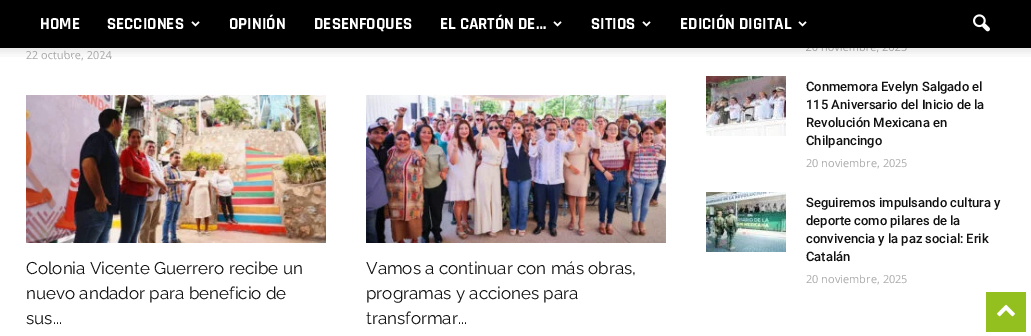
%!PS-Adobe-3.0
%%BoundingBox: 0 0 1031 336
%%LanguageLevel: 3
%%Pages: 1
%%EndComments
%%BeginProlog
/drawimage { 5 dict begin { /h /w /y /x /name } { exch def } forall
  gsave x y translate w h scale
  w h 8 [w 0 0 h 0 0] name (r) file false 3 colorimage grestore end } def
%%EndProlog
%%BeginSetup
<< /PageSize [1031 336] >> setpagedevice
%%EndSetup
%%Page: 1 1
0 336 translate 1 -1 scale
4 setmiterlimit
1 setgray
0 0 1031 336 rectfill
0 setgray
0 0 1031 48 rectfill
(images/1.raw) 191 21 9 6 drawimage
(images/1.raw) 553 21 9 6 drawimage
(images/1.raw) 642 21 9 6 drawimage
(images/1.raw) 798 21 9 6 drawimage
(images/2.raw) 973 14 17 18 drawimage
(images/4.raw) 26 95 300 148 drawimage
(images/5.raw) 366 95 300 148 drawimage
(images/6.raw) 706 76 80 60 drawimage
(images/7.raw) 706 192 80 60 drawimage
0.576 0.753 0.122 setrgbcolor
986 292 40 40 rectfill
(images/8.raw) 997 304 18 13 drawimage
/Rajdhani-Bold [17 0 0 -17 0 0] selectfont
1 setgray
40 29 moveto (HOME) show
107 29 moveto (SECCIONES) show
229 29 moveto (OPINIÓN) show
314 29 moveto (DESENFOQUES) show
440 29 moveto (EL CARTÓN DE…) show
591 29 moveto (SITIOS) show
680 29 moveto (EDICIÓN DIGITAL) show
/OpenSans-Regular [11 0 0 -11 0 0] selectfont
0.667 setgray
26 59 moveto (22 octubre, 2024) show
/Raleway-Regular [17 0 0 -17 0 0] selectfont
0.067 setgray
26 274 moveto (Colonia Vicente Guerrero recibe un) show
26 299 moveto (nuevo andador para beneficio de) show
26 324 moveto (sus...) show
366 274 moveto (Vamos a continuar con más obras,) show
366 299 moveto (programas y acciones para) show
366 324 moveto (transformar...) show
/OpenSans-Regular [11 0 0 -11 0 0] selectfont
0.667 setgray
876 51 moveto (,) show
(images/3.raw) 0 48 1031 9 drawimage
/Roboto-Medium [13 0 0 -13 0 0] selectfont
0.067 setgray
806 91 moveto (Conmemora Evelyn Salgado el) show
806 109 moveto (115 Aniversario del Inicio de la) show
806 127 moveto (Revolución Mexicana en) show
806 145 moveto (Chilpancingo) show
/OpenSans-Regular [11 0 0 -11 0 0] selectfont
0.667 setgray
806 167 moveto (20 noviembre, 2025) show
/Roboto-Medium [13 0 0 -13 0 0] selectfont
0.067 setgray
806 207 moveto (Seguiremos impulsando cultura y) show
806 225 moveto (deporte como pilares de la) show
806 243 moveto (convivencia y la paz social: Erik) show
806 261 moveto (Catalán) show
/OpenSans-Regular [11 0 0 -11 0 0] selectfont
0.667 setgray
806 283 moveto (20 noviembre, 2025) show
showpage
%%EOF
